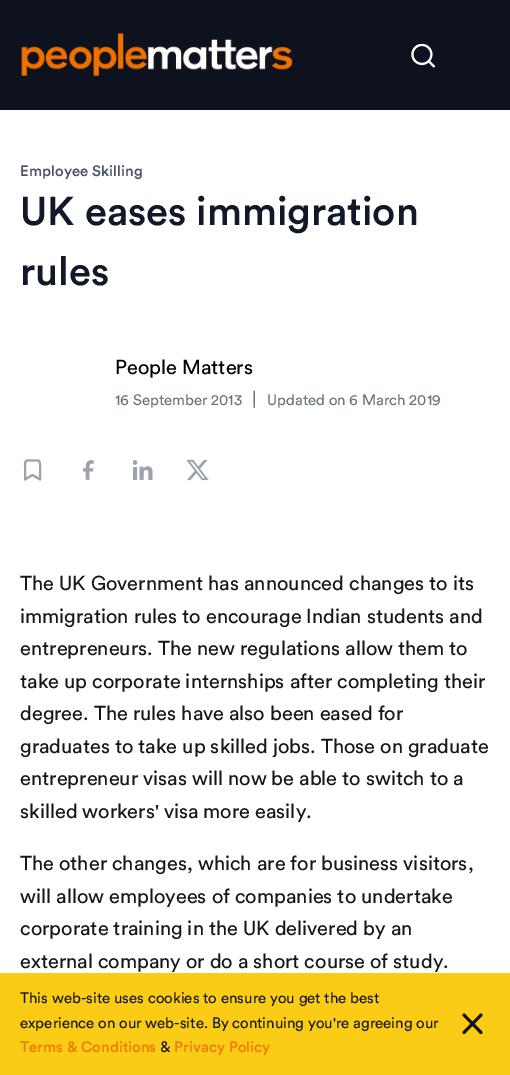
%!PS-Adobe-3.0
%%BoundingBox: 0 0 510 1075
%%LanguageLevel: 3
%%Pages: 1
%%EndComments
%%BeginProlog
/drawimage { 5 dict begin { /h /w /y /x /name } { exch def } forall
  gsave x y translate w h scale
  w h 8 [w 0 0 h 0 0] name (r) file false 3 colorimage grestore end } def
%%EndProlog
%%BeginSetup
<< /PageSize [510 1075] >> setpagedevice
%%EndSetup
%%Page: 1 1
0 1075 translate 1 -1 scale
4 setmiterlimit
1 setgray
0 0 510 1075 rectfill
0.051 0.071 0.118 setrgbcolor
0 0 510 110 rectfill
(images/1.raw) 21 33 272 43 drawimage
(images/2.raw) 411 44 24 24 drawimage
0.612 0.639 0.686 setrgbcolor
2.1 setlinewidth
1 setlinecap
1 setlinejoin
newpath 40 479.5 moveto 32.5 475 lineto 25 479.5 lineto 25 465.5 lineto 25 459 26.5 460.5 32.5 460.5 curveto 38.5 460.5 40 459 40 465.5 curveto closepath stroke
(images/3.raw) 83 460 11 20 drawimage
(images/4.raw) 133 460 20 20 drawimage
(images/5.raw) 186 459 23 22 drawimage
0.98 0.8 0.082 setrgbcolor
0 973 510 102 rectfill
0.071 setgray
2.9 setlinewidth
newpath 481 1015 moveto 464 1032.5 lineto 464 1015 moveto 481 1032.5 lineto stroke
/Circular-Medium [15 0 0 -15 0 0] selectfont
0.294 0.333 0.388 setrgbcolor
20 176 moveto (Employee Skilling) show
/Circular-Medium [40 0 0 -40 0 0] selectfont
0.067 0.094 0.153 setrgbcolor
20 225 moveto (UK eases immigration) show
20 285 moveto (rules) show
/Circular-Regular [20 0 0 -20 0 0] selectfont
0 setgray
115 374 moveto (People Matters) show
/Circular-Regular [15 0 0 -15 0 0] selectfont
0.42 0.447 0.502 setrgbcolor
115 405 moveto (16 September 2013) show
/Circular-Regular [18 0 0 -18 0 0] selectfont
252 405 moveto (|) show
/Circular-Regular [15 0 0 -15 0 0] selectfont
267 405 moveto (Updated on 6 March 2019) show
/Circular-Regular [20 0 0 -20 0 0] selectfont
0.09 setgray
20 590 moveto (The UK Government has announced changes to its) show
20 623 moveto (immigration rules to encourage Indian students and) show
20 655 moveto (entrepreneurs. The new regulations allow them to) show
20 688 moveto (take up corporate internships after completing their) show
20 720 moveto (degree. The rules have also been eased for) show
20 753 moveto (graduates to take up skilled jobs. Those on graduate) show
20 785 moveto (entrepreneur visas will now be able to switch to a) show
20 818 moveto (skilled workers' visa more easily.) show
20 870 moveto (The other changes, which are for business visitors,) show
20 903 moveto (will allow employees of companies to undertake) show
20 935 moveto (corporate training in the UK delivered by an) show
20 968 moveto (external company or do a short course of study.) show
/Circular-Regular [15 0 0 -15 0 0] selectfont
20 1003 moveto (This web-site uses cookies to ensure you get the best) show
20 1028 moveto (experience on our web-site. By continuing you're agreeing our) show
/Circular-Medium [15 0 0 -15 0 0] selectfont
0.945 0.486 0.024 setrgbcolor
20 1052 moveto (Terms & Conditions) show
/Circular-Regular [15 0 0 -15 0 0] selectfont
0.09 setgray
160 1052 moveto (&) show
/Circular-Medium [15 0 0 -15 0 0] selectfont
0.945 0.486 0.024 setrgbcolor
174 1052 moveto (Privacy Policy) show
showpage
%%EOF
